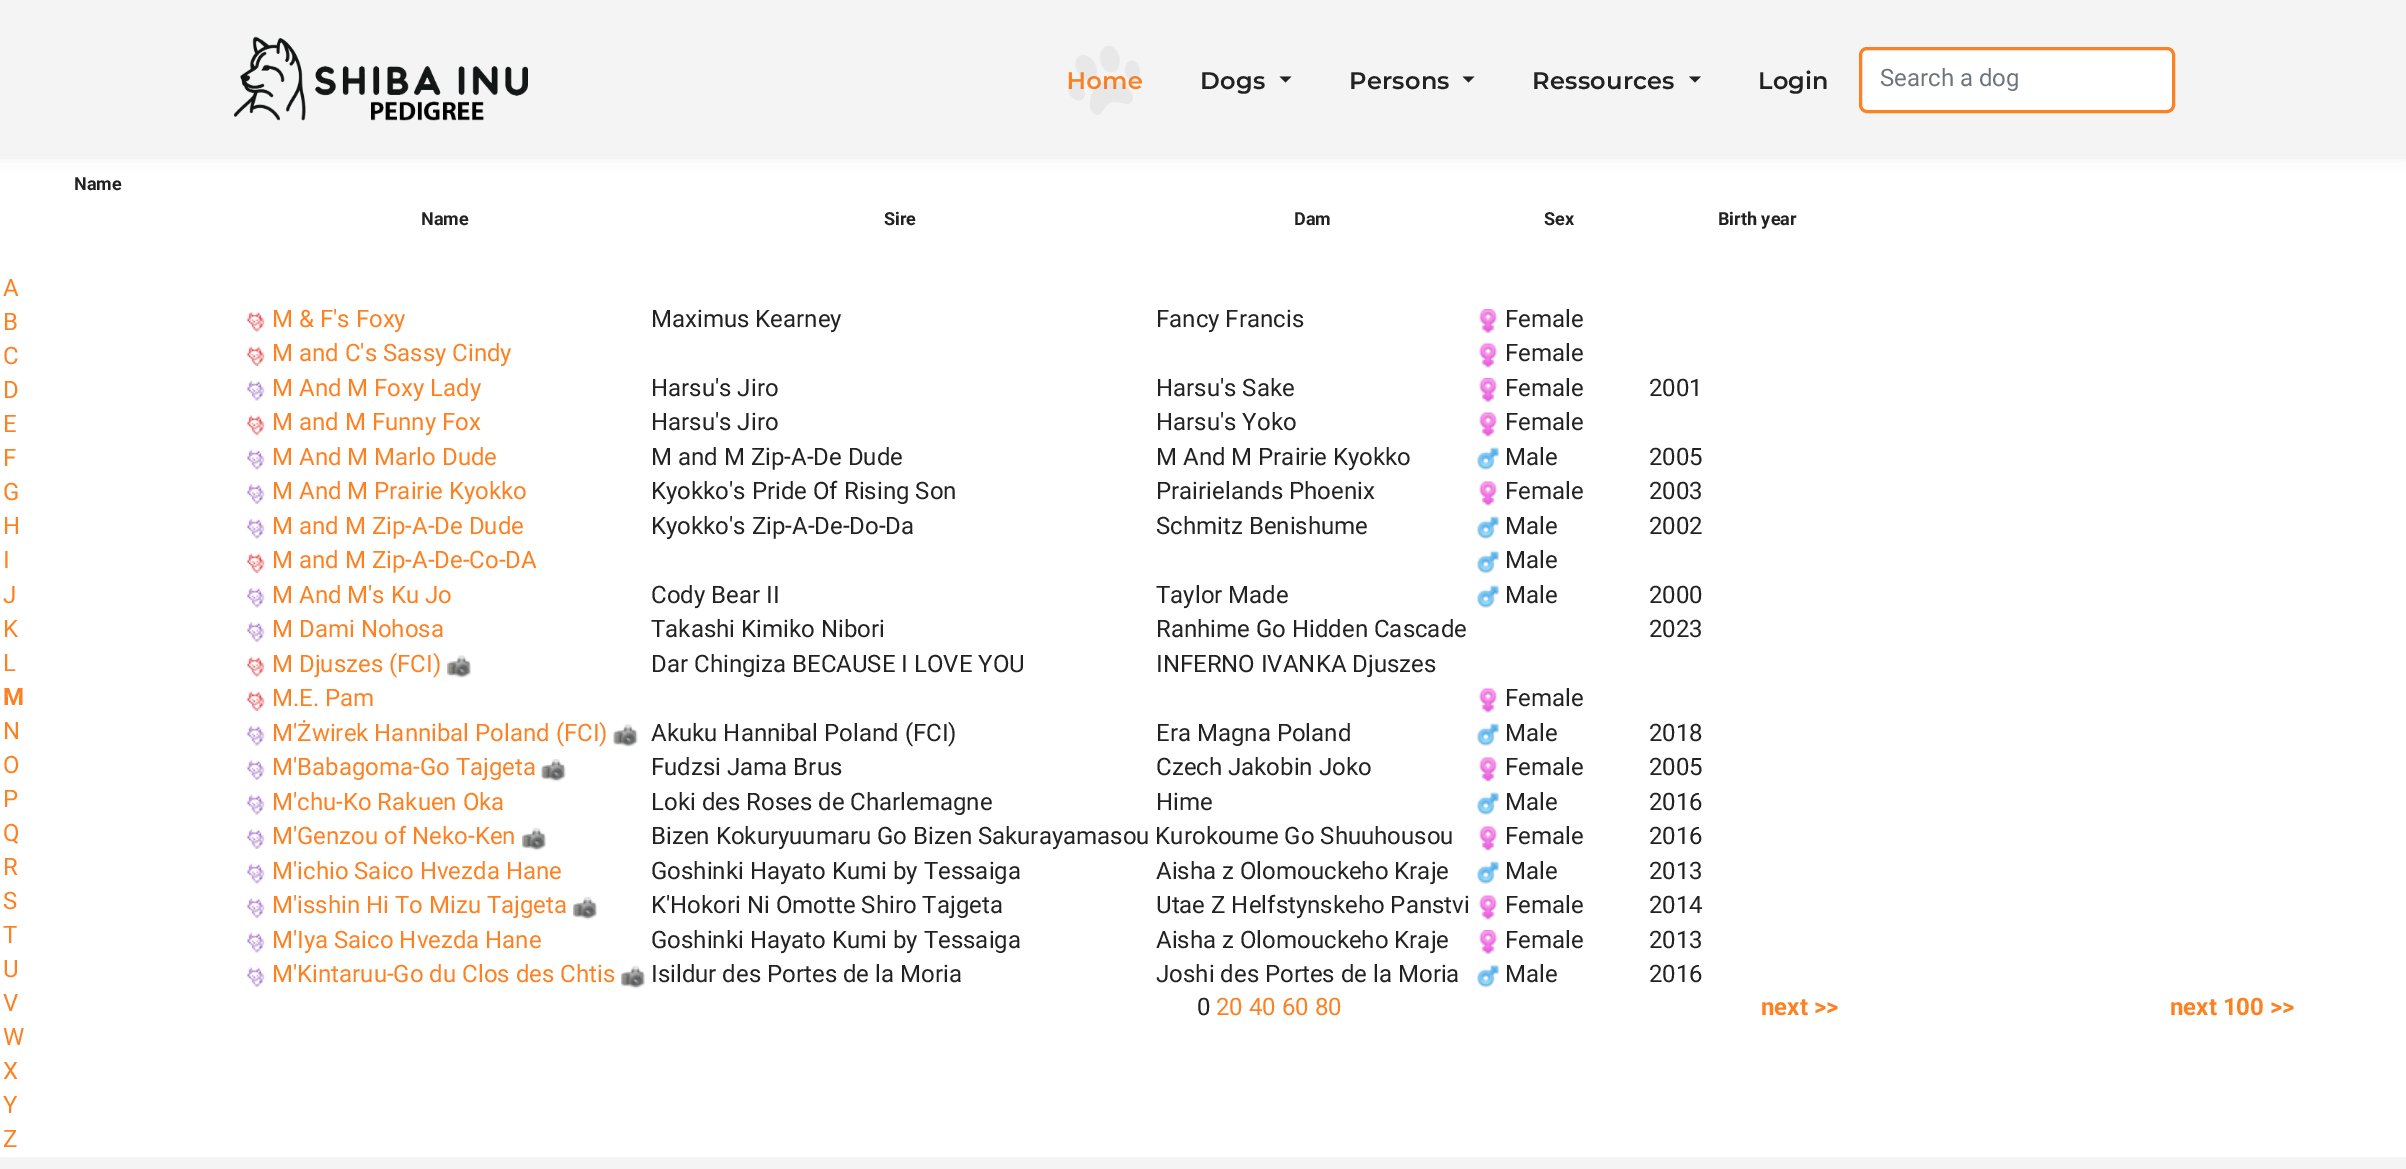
%!PS-Adobe-3.0
%%BoundingBox: 0 0 2406 1169
%%LanguageLevel: 3
%%Pages: 1
%%EndComments
%%BeginProlog
/setalpha { dup .setfillconstantalpha .setstrokeconstantalpha } def
/rrect { 5 dict begin { /r /h /w /y /x } { exch def } forall
  x r add y moveto x w add y 2 copy h add r arct x w add y h add x 1 index r arct
  x y h add x y r arct x y 2 copy exch w add exch r arct closepath end } def
/softshadow { 12 dict begin { /a /b /q /h /w /y /x } { exch def } forall gsave /was 0 def
  9 -2 -9 { dup b mul 4 div /e exch def 1 sub .425 mul 2.718 exch exp 1 add a .99 .min exch div /now exch def
    1 1 now sub 1 was sub div sub setalpha /was now def
    w h .min e 2 mul add 0 gt { x e sub y e sub w e 2 mul add h e 2 mul add
      q e add b .6 mul add w h .min 2 div e add .min 0 .max rrect fill } if } for grestore end } def
/drawimage { 5 dict begin { /h /w /y /x /name } { exch def } forall
  gsave x y translate w h scale
  w h 8 [w 0 0 h 0 0] name (r) file false 3 colorimage grestore end } def
%%EndProlog
%%BeginSetup
<< /PageSize [2406 1169] /PageUsesTransparency true >> setpagedevice
%%EndSetup
%%Page: 1 1
0 .pushpdf14devicefilter
0 1169 translate 1 -1 scale
4 setmiterlimit
1 setgray
0 0 2406 1169 rectfill
0 setgray
0 -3 2406 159 0 9 0.07 softshadow
0.957 setgray
0 0 2406 159 rectfill
(images/1.raw) 233 36 295 85 drawimage
0.133 setgray
newpath 1279.5 76.5 moveto 1291.5 76.5 lineto 1285.5 82.5 lineto closepath fill
newpath 1462.5 76.5 moveto 1474.5 76.5 lineto 1468.5 82.5 lineto closepath fill
newpath 1689 76.5 moveto 1701 76.5 lineto 1695 82.5 lineto closepath fill
1 setgray
1860.5 48.5 313 63 6.5 rrect gsave fill grestore
0.984 0.506 0.133 setrgbcolor
3 setlinewidth
stroke
(images/3.raw) 247 311 18 21 drawimage
(images/4.raw) 1479 309 19 24 drawimage
(images/5.raw) 247 346 18 20 drawimage
(images/6.raw) 1479 343 19 25 drawimage
(images/7.raw) 247 380 18 21 drawimage
(images/4.raw) 1479 378 19 24 drawimage
(images/5.raw) 247 415 18 20 drawimage
(images/6.raw) 1479 412 19 25 drawimage
(images/7.raw) 247 449 18 21 drawimage
(images/8.raw) 1477 447 22 23 drawimage
(images/9.raw) 247 484 18 20 drawimage
(images/6.raw) 1479 481 19 25 drawimage
(images/7.raw) 247 518 18 21 drawimage
(images/8.raw) 1477 516 22 23 drawimage
(images/5.raw) 247 553 18 20 drawimage
(images/10.raw) 1477 550 22 24 drawimage
(images/7.raw) 247 587 18 21 drawimage
(images/8.raw) 1477 585 22 23 drawimage
(images/9.raw) 247 622 18 20 drawimage
(images/3.raw) 247 656 18 21 drawimage
(images/11.raw) 447 655 24 23 drawimage
(images/5.raw) 247 691 18 20 drawimage
(images/6.raw) 1479 688 19 25 drawimage
(images/7.raw) 247 725 18 21 drawimage
(images/12.raw) 613 724 25 23 drawimage
(images/8.raw) 1477 723 22 23 drawimage
(images/9.raw) 247 760 18 20 drawimage
(images/13.raw) 541 759 25 23 drawimage
(images/6.raw) 1479 757 19 25 drawimage
(images/7.raw) 247 794 18 21 drawimage
(images/8.raw) 1477 792 22 23 drawimage
(images/9.raw) 247 829 18 20 drawimage
(images/14.raw) 522 827 24 24 drawimage
(images/6.raw) 1479 826 19 25 drawimage
(images/7.raw) 247 863 18 21 drawimage
(images/8.raw) 1477 861 22 23 drawimage
(images/9.raw) 247 898 18 20 drawimage
(images/15.raw) 573 896 24 24 drawimage
(images/6.raw) 1479 895 19 25 drawimage
(images/7.raw) 247 932 18 21 drawimage
(images/4.raw) 1479 930 19 24 drawimage
(images/9.raw) 247 967 18 20 drawimage
(images/16.raw) 621 965 24 24 drawimage
(images/10.raw) 1477 964 22 24 drawimage
0.957 setgray
0 1157 2406 12 rectfill
/Montserrat-SemiBold [24 0 0 -24 0 0] selectfont
0.984 0.506 0.133 setrgbcolor
1067 89 moveto 0.25 0 (Home) ashow
(images/2.raw) 1068 46 72 69 drawimage
0.133 setgray
1200 89 moveto 0.25 0 (Dogs) ashow
1349 89 moveto 0.25 0 (Persons) ashow
1532 89 moveto 0.25 0 (Ressources) ashow
1758 89 moveto 0.25 0 (Login) ashow
/Roboto-Regular [24 0 0 -24 0 0] selectfont
0.424 0.459 0.49 setrgbcolor
1880 86 moveto (Search a dog) show
/Roboto-Bold [18 0 0 -18 0 0] selectfont
0.133 setgray
74 190 moveto (Name) show
/Roboto-Regular [24 0 0 -24 0 0] selectfont
0.984 0.506 0.133 setrgbcolor
3 296 moveto (A) show
3 330 moveto (B) show
3 364 moveto (C) show
3 398 moveto (D) show
3 432 moveto (E) show
3 466 moveto (F) show
3 500 moveto (G) show
3 534 moveto (H) show
3 568 moveto (I) show
3 603 moveto (J) show
3 637 moveto (K) show
3 671 moveto (L) show
/Roboto-Bold [24 0 0 -24 0 0] selectfont
3 705 moveto (M) show
/Roboto-Regular [24 0 0 -24 0 0] selectfont
3 739 moveto (N) show
3 773 moveto (O) show
3 807 moveto (P) show
3 841 moveto (Q) show
3 875 moveto (R) show
3 909 moveto (S) show
3 943 moveto (T) show
3 977 moveto (U) show
3 1011 moveto (V) show
3 1045 moveto (W) show
3 1079 moveto (X) show
3 1113 moveto (Y) show
3 1147 moveto (Z) show
/Roboto-Bold [18 0 0 -18 0 0] selectfont
0.133 setgray
421 225 moveto (Name) show
884 225 moveto (Sire) show
1294 225 moveto (Dam) show
1544 225 moveto (Sex) show
1718 225 moveto (Birth year) show
/Roboto-Regular [24 0 0 -24 0 0] selectfont
0.984 0.506 0.133 setrgbcolor
272 327 moveto (M & F's Foxy) show
0.133 setgray
651 327 moveto (Maximus Kearney) show
1156 327 moveto (Fancy Francis) show
1505 327 moveto (Female) show
0.984 0.506 0.133 setrgbcolor
272 361 moveto (M and C's Sassy Cindy) show
0.133 setgray
1505 361 moveto (Female) show
0.984 0.506 0.133 setrgbcolor
272 396 moveto (M And M Foxy Lady) show
0.133 setgray
651 396 moveto (Harsu's Jiro) show
1156 396 moveto (Harsu's Sake) show
1505 396 moveto (Female) show
1649 396 moveto (2001) show
0.984 0.506 0.133 setrgbcolor
272 430 moveto (M and M Funny Fox) show
0.133 setgray
651 430 moveto (Harsu's Jiro) show
1156 430 moveto (Harsu's Yoko) show
1505 430 moveto (Female) show
0.984 0.506 0.133 setrgbcolor
272 465 moveto (M And M Marlo Dude) show
0.133 setgray
651 465 moveto (M and M Zip-A-De Dude) show
1156 465 moveto (M And M Prairie Kyokko) show
1505 465 moveto (Male) show
1649 465 moveto (2005) show
0.984 0.506 0.133 setrgbcolor
272 499 moveto (M And M Prairie Kyokko) show
0.133 setgray
651 499 moveto (Kyokko's Pride Of Rising Son) show
1156 499 moveto (Prairielands Phoenix) show
1505 499 moveto (Female) show
1649 499 moveto (2003) show
0.984 0.506 0.133 setrgbcolor
272 534 moveto (M and M Zip-A-De Dude) show
0.133 setgray
651 534 moveto (Kyokko's Zip-A-De-Do-Da) show
1156 534 moveto (Schmitz Benishume) show
1505 534 moveto (Male) show
1649 534 moveto (2002) show
0.984 0.506 0.133 setrgbcolor
272 568 moveto (M and M Zip-A-De-Co-DA) show
0.133 setgray
1505 568 moveto (Male) show
0.984 0.506 0.133 setrgbcolor
272 603 moveto (M And M's Ku Jo) show
0.133 setgray
651 603 moveto (Cody Bear II) show
1156 603 moveto (Taylor Made) show
1505 603 moveto (Male) show
1649 603 moveto (2000) show
0.984 0.506 0.133 setrgbcolor
272 637 moveto (M Dami Nohosa) show
0.133 setgray
651 637 moveto (Takashi Kimiko Nibori) show
1156 637 moveto (Ranhime Go Hidden Cascade) show
1649 637 moveto (2023) show
0.984 0.506 0.133 setrgbcolor
272 672 moveto (M Djuszes \(FCI\)) show
0.133 setgray
651 672 moveto (Dar Chingiza BECAUSE I LOVE YOU) show
1156 672 moveto (INFERNO IVANKA Djuszes) show
0.984 0.506 0.133 setrgbcolor
272 706 moveto (M.E. Pam) show
0.133 setgray
1505 706 moveto (Female) show
0.984 0.506 0.133 setrgbcolor
272 741 moveto (M'Żwirek Hannibal Poland \(FCI\)) show
0.133 setgray
651 741 moveto (Akuku Hannibal Poland \(FCI\)) show
1156 741 moveto (Era Magna Poland) show
1505 741 moveto (Male) show
1649 741 moveto (2018) show
0.984 0.506 0.133 setrgbcolor
272 775 moveto (M'Babagoma-Go Tajgeta) show
0.133 setgray
651 775 moveto (Fudzsi Jama Brus) show
1156 775 moveto (Czech Jakobin Joko) show
1505 775 moveto (Female) show
1649 775 moveto (2005) show
0.984 0.506 0.133 setrgbcolor
272 810 moveto (M'chu-Ko Rakuen Oka) show
0.133 setgray
651 810 moveto (Loki des Roses de Charlemagne) show
1156 810 moveto (Hime) show
1505 810 moveto (Male) show
1649 810 moveto (2016) show
0.984 0.506 0.133 setrgbcolor
272 844 moveto (M'Genzou of Neko-Ken) show
0.133 setgray
651 844 moveto (Bizen Kokuryuumaru Go Bizen Sakurayamasou Kurokoume Go Shuuhousou) show
1505 844 moveto (Female) show
1649 844 moveto (2016) show
0.984 0.506 0.133 setrgbcolor
272 879 moveto (M'ichio Saico Hvezda Hane) show
0.133 setgray
651 879 moveto (Goshinki Hayato Kumi by Tessaiga) show
1156 879 moveto (Aisha z Olomouckeho Kraje) show
1505 879 moveto (Male) show
1649 879 moveto (2013) show
0.984 0.506 0.133 setrgbcolor
272 913 moveto (M'isshin Hi To Mizu Tajgeta) show
0.133 setgray
651 913 moveto (K'Hokori Ni Omotte Shiro Tajgeta) show
1156 913 moveto (Utae Z Helfstynskeho Panstvi) show
1505 913 moveto (Female) show
1649 913 moveto (2014) show
0.984 0.506 0.133 setrgbcolor
272 948 moveto (M'Iya Saico Hvezda Hane) show
0.133 setgray
651 948 moveto (Goshinki Hayato Kumi by Tessaiga) show
1156 948 moveto (Aisha z Olomouckeho Kraje) show
1505 948 moveto (Female) show
1649 948 moveto (2013) show
0.984 0.506 0.133 setrgbcolor
272 982 moveto (M'Kintaruu-Go du Clos des Chtis) show
0.133 setgray
651 982 moveto (Isildur des Portes de la Moria) show
1156 982 moveto (Joshi des Portes de la Moria) show
1505 982 moveto (Male) show
1649 982 moveto (2016) show
1197 1015 moveto (0) show
0.984 0.506 0.133 setrgbcolor
1216 1015 moveto (20 40 60 80) show
/Roboto-Bold [24 0 0 -24 0 0] selectfont
1761 1015 moveto (next >>) show
2170 1015 moveto (next 100 >>) show
.poppdf14devicefilter showpage
%%EOF
